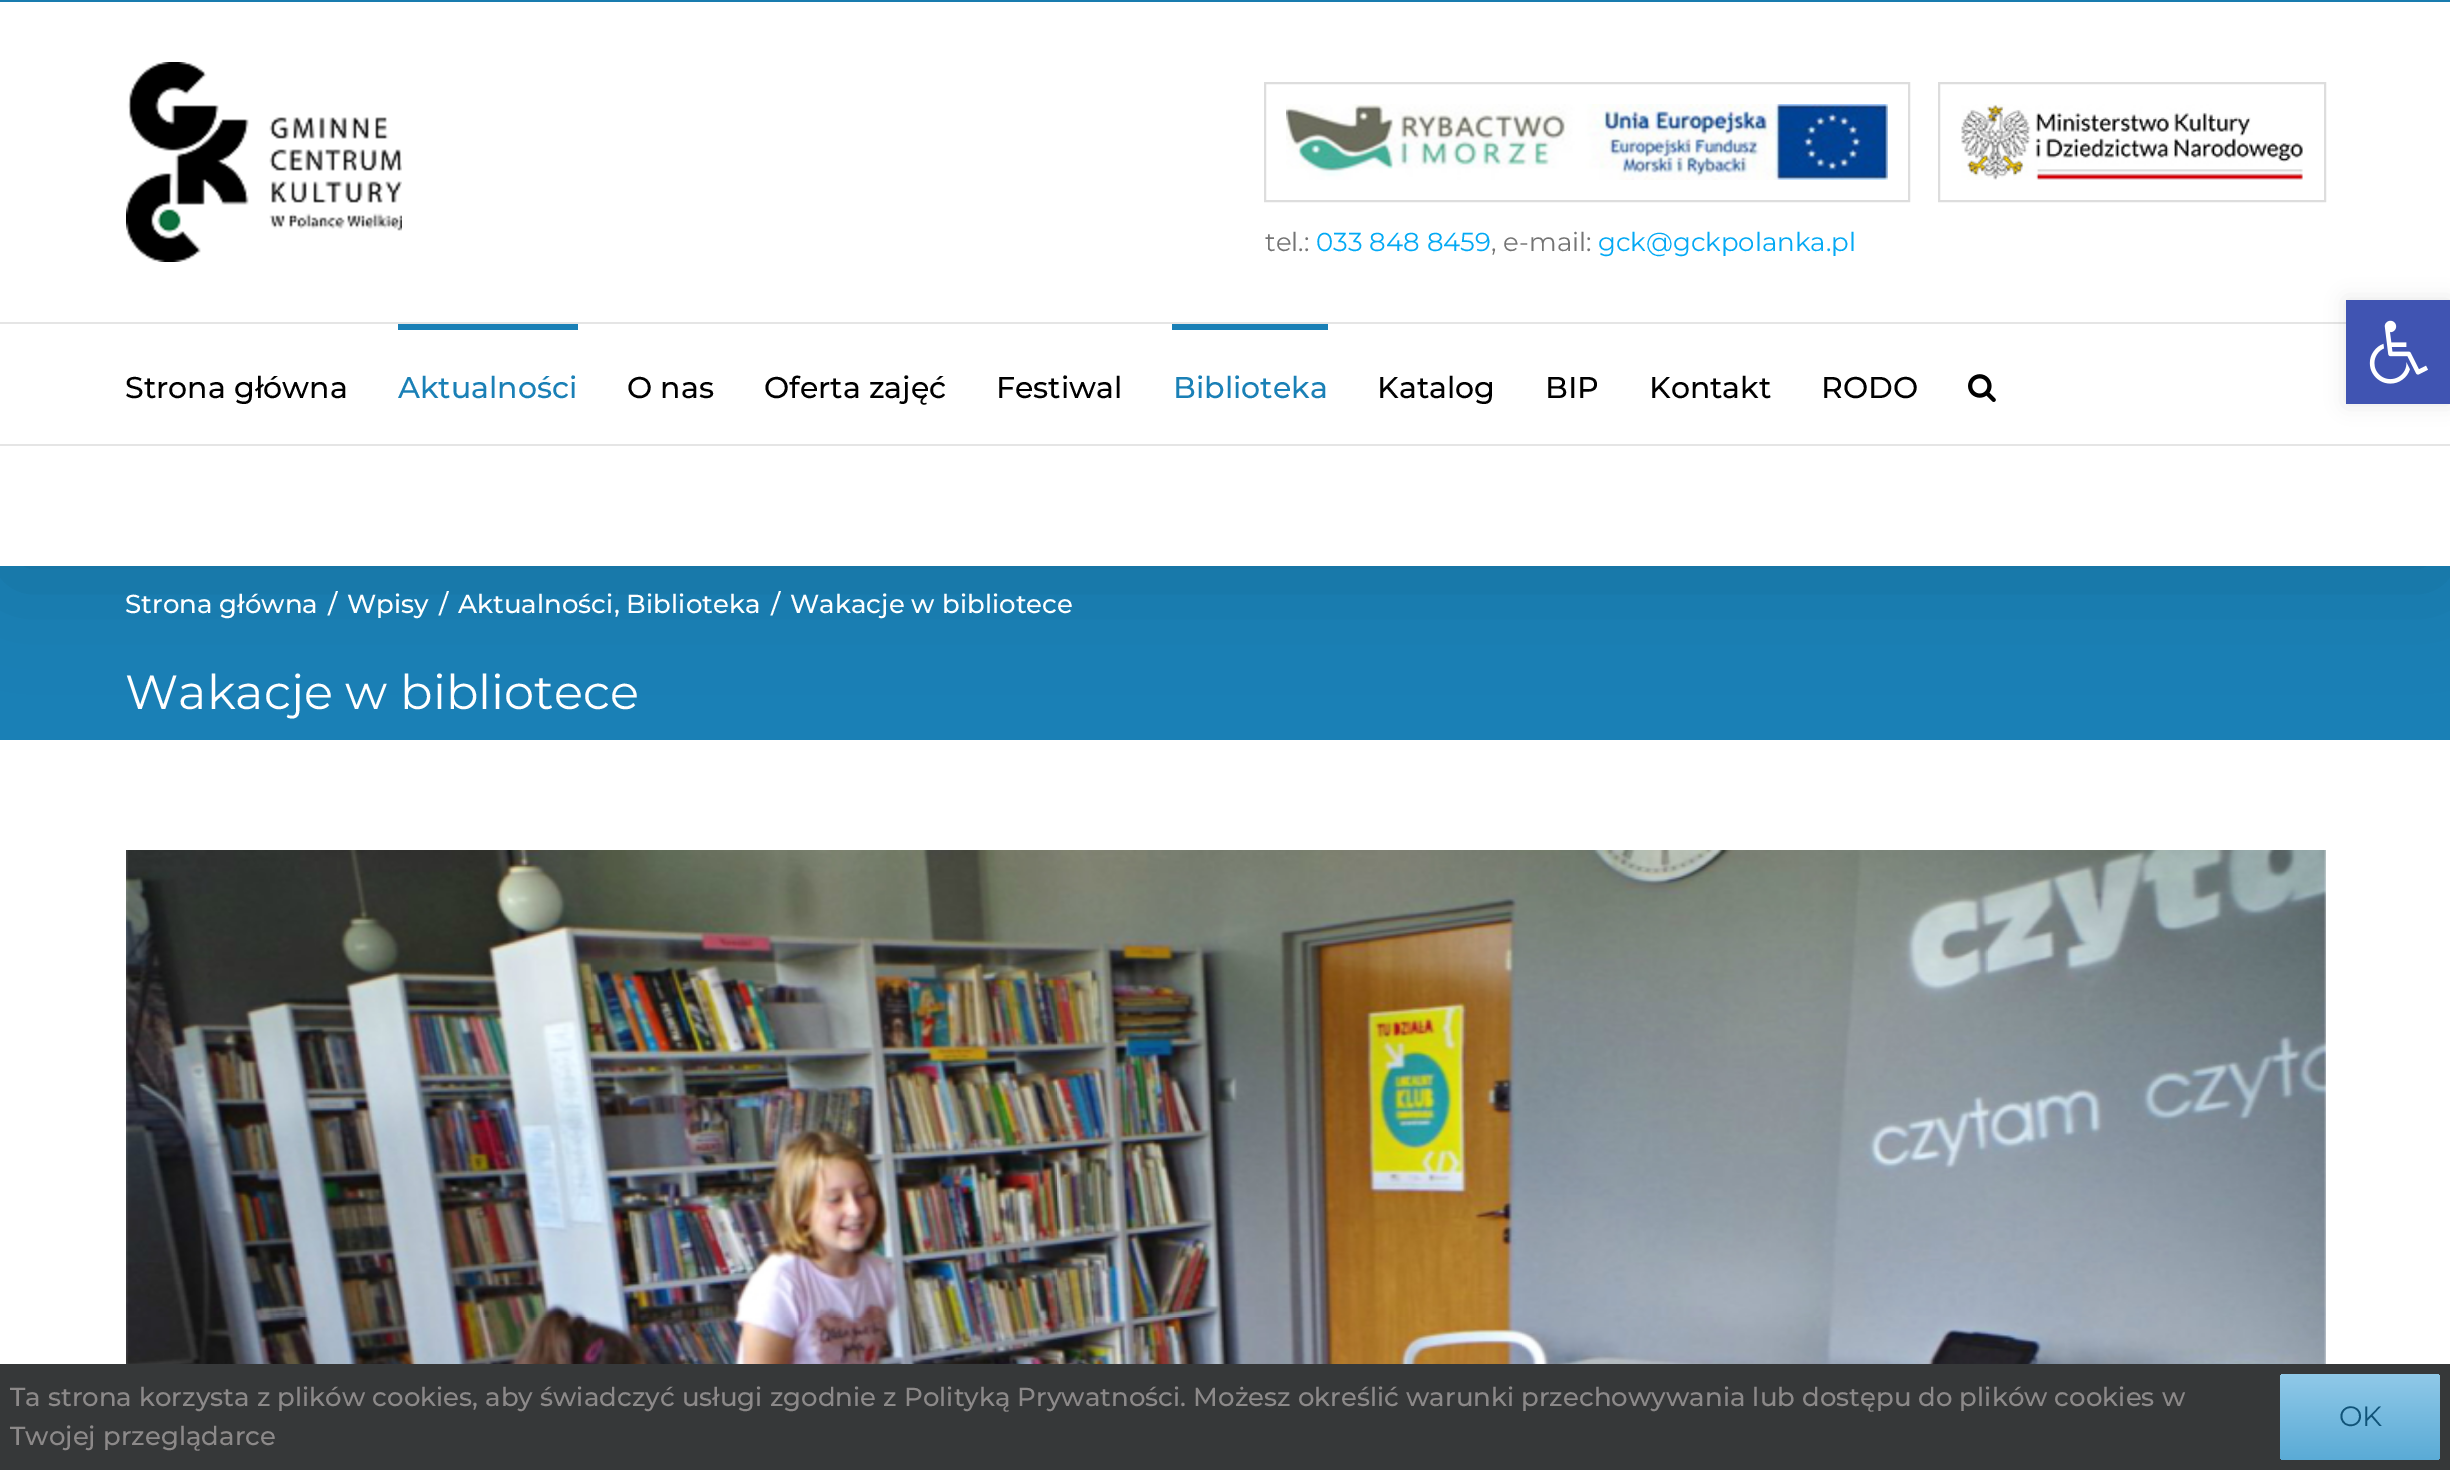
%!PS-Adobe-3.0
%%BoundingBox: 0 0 2450 1470
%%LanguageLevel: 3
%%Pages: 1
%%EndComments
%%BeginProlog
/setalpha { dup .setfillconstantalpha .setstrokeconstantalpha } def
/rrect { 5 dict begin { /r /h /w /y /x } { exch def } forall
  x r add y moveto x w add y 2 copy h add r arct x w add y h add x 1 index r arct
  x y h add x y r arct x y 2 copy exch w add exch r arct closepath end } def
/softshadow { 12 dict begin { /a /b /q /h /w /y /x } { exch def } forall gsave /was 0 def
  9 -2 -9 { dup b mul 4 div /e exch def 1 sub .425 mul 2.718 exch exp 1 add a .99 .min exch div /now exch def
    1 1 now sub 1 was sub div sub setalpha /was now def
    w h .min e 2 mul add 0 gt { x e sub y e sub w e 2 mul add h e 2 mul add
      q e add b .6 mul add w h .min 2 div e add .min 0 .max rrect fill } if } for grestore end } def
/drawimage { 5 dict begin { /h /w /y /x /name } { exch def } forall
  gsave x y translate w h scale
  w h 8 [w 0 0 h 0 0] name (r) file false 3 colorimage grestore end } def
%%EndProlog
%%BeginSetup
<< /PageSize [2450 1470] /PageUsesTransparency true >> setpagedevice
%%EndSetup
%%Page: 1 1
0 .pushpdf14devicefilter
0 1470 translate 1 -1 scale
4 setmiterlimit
0.102 0.502 0.714 setrgbcolor
0 0 2450 1470 rectfill
1 setgray
0 2 2450 1362 rectfill
0.102 0.502 0.714 setrgbcolor
0 566 2450 174 rectfill
gsave
newpath 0 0 moveto 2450 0 lineto 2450 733 lineto 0 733 lineto closepath 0 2 moveto 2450 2 lineto 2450 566 lineto 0 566 lineto closepath eoclip newpath
0 setgray
4 26 2442 556 0 50 0.14 softshadow
grestore
0.898 setgray
0 322 2346 2 rectfill
(images/1.raw) 126 62 276 200 drawimage
0.867 setgray
2 setlinewidth
1265 83 644 118 rectstroke
1939 83 386 118 rectstroke
(images/2.raw) 1286 104 602 76 drawimage
(images/3.raw) 1961 104 342 76 drawimage
0.898 setgray
0 444 2450 2 rectfill
0.102 0.502 0.714 setrgbcolor
398 324 180 6 rectfill
1172 324 156 6 rectfill
(images/4.raw) 1968 374 28 28 drawimage
(images/5.raw) 126 850 2200 514 drawimage
0 setgray
2346 300 104 104 0 10 0.1 softshadow
0.251 0.329 0.698 setrgbcolor
2346 300 104 104 rectfill
(images/6.raw) 2369 320 59 64 drawimage
0.212 0.22 0.224 setrgbcolor
0 1364 2450 106 rectfill
gsave 2280 1374 160 86 4 rrect clip newpath
<< /ShadingType 2 /ColorSpace /DeviceRGB /Coords [2360 1460 2360 1374] /Extend [true true] /Function << /FunctionType 2 /Domain [0 1] /C0 [0.353 0.671 0.839] /C1 [0.565 0.788 0.91] /N 1 >> >> shfill grestore
/Montserrat-Thin [26 0 0 -26 0 0] selectfont
0.455 setgray
1265 251 moveto (tel.:) show
0.012 0.663 0.957 setrgbcolor
1316 251 moveto (033 848 8459) show
0.455 setgray
1491 251 moveto (, e-mail:) show
0.012 0.663 0.957 setrgbcolor
1598 251 moveto (gck@gckpolanka.pl) show
/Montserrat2-Thin [30 0 0 -30 0 0] selectfont
0 setgray
125 398 moveto (Strona główna) show
0.102 0.502 0.714 setrgbcolor
398 398 moveto (Aktualności) show
0 setgray
627 398 moveto (O nas) show
764 398 moveto (Oferta zajęć) show
996 398 moveto (Festiwal) show
0.102 0.502 0.714 setrgbcolor
1173 398 moveto (Biblioteka) show
0 setgray
1377 398 moveto (Katalog) show
1545 398 moveto (BIP) show
1649 398 moveto (Kontakt) show
1821 398 moveto (RODO) show
/Montserrat2-Thin [26 0 0 -26 0 0] selectfont
1 setgray
125 613 moveto (Strona główna) show
328 613 moveto (/) show
347 613 moveto (Wpisy) show
439 613 moveto (/) show
458 613 moveto (Aktualności, Biblioteka) show
771 613 moveto (/) show
790 613 moveto (Wakacje w bibliotece) show
/Montserrat-Thin [48 0 0 -48 0 0] selectfont
125 709 moveto (Wakacje w bibliotece) show
/Montserrat2-Thin [26 0 0 -26 0 0] selectfont
0.549 0.537 0.537 setrgbcolor
10 1406 moveto (Ta strona korzysta z plików cookies, aby świadczyć usługi zgodnie z Polityką Prywatności. Możesz określić warunki przechowywania lub dostępu do plików cookies w) show
10 1445 moveto (Twojej przeglądarce) show
/Montserrat-Thin [28 0 0 -28 0 0] selectfont
0.063 0.325 0.471 setrgbcolor
2339 1426 moveto (OK) show
.poppdf14devicefilter showpage
%%EOF
